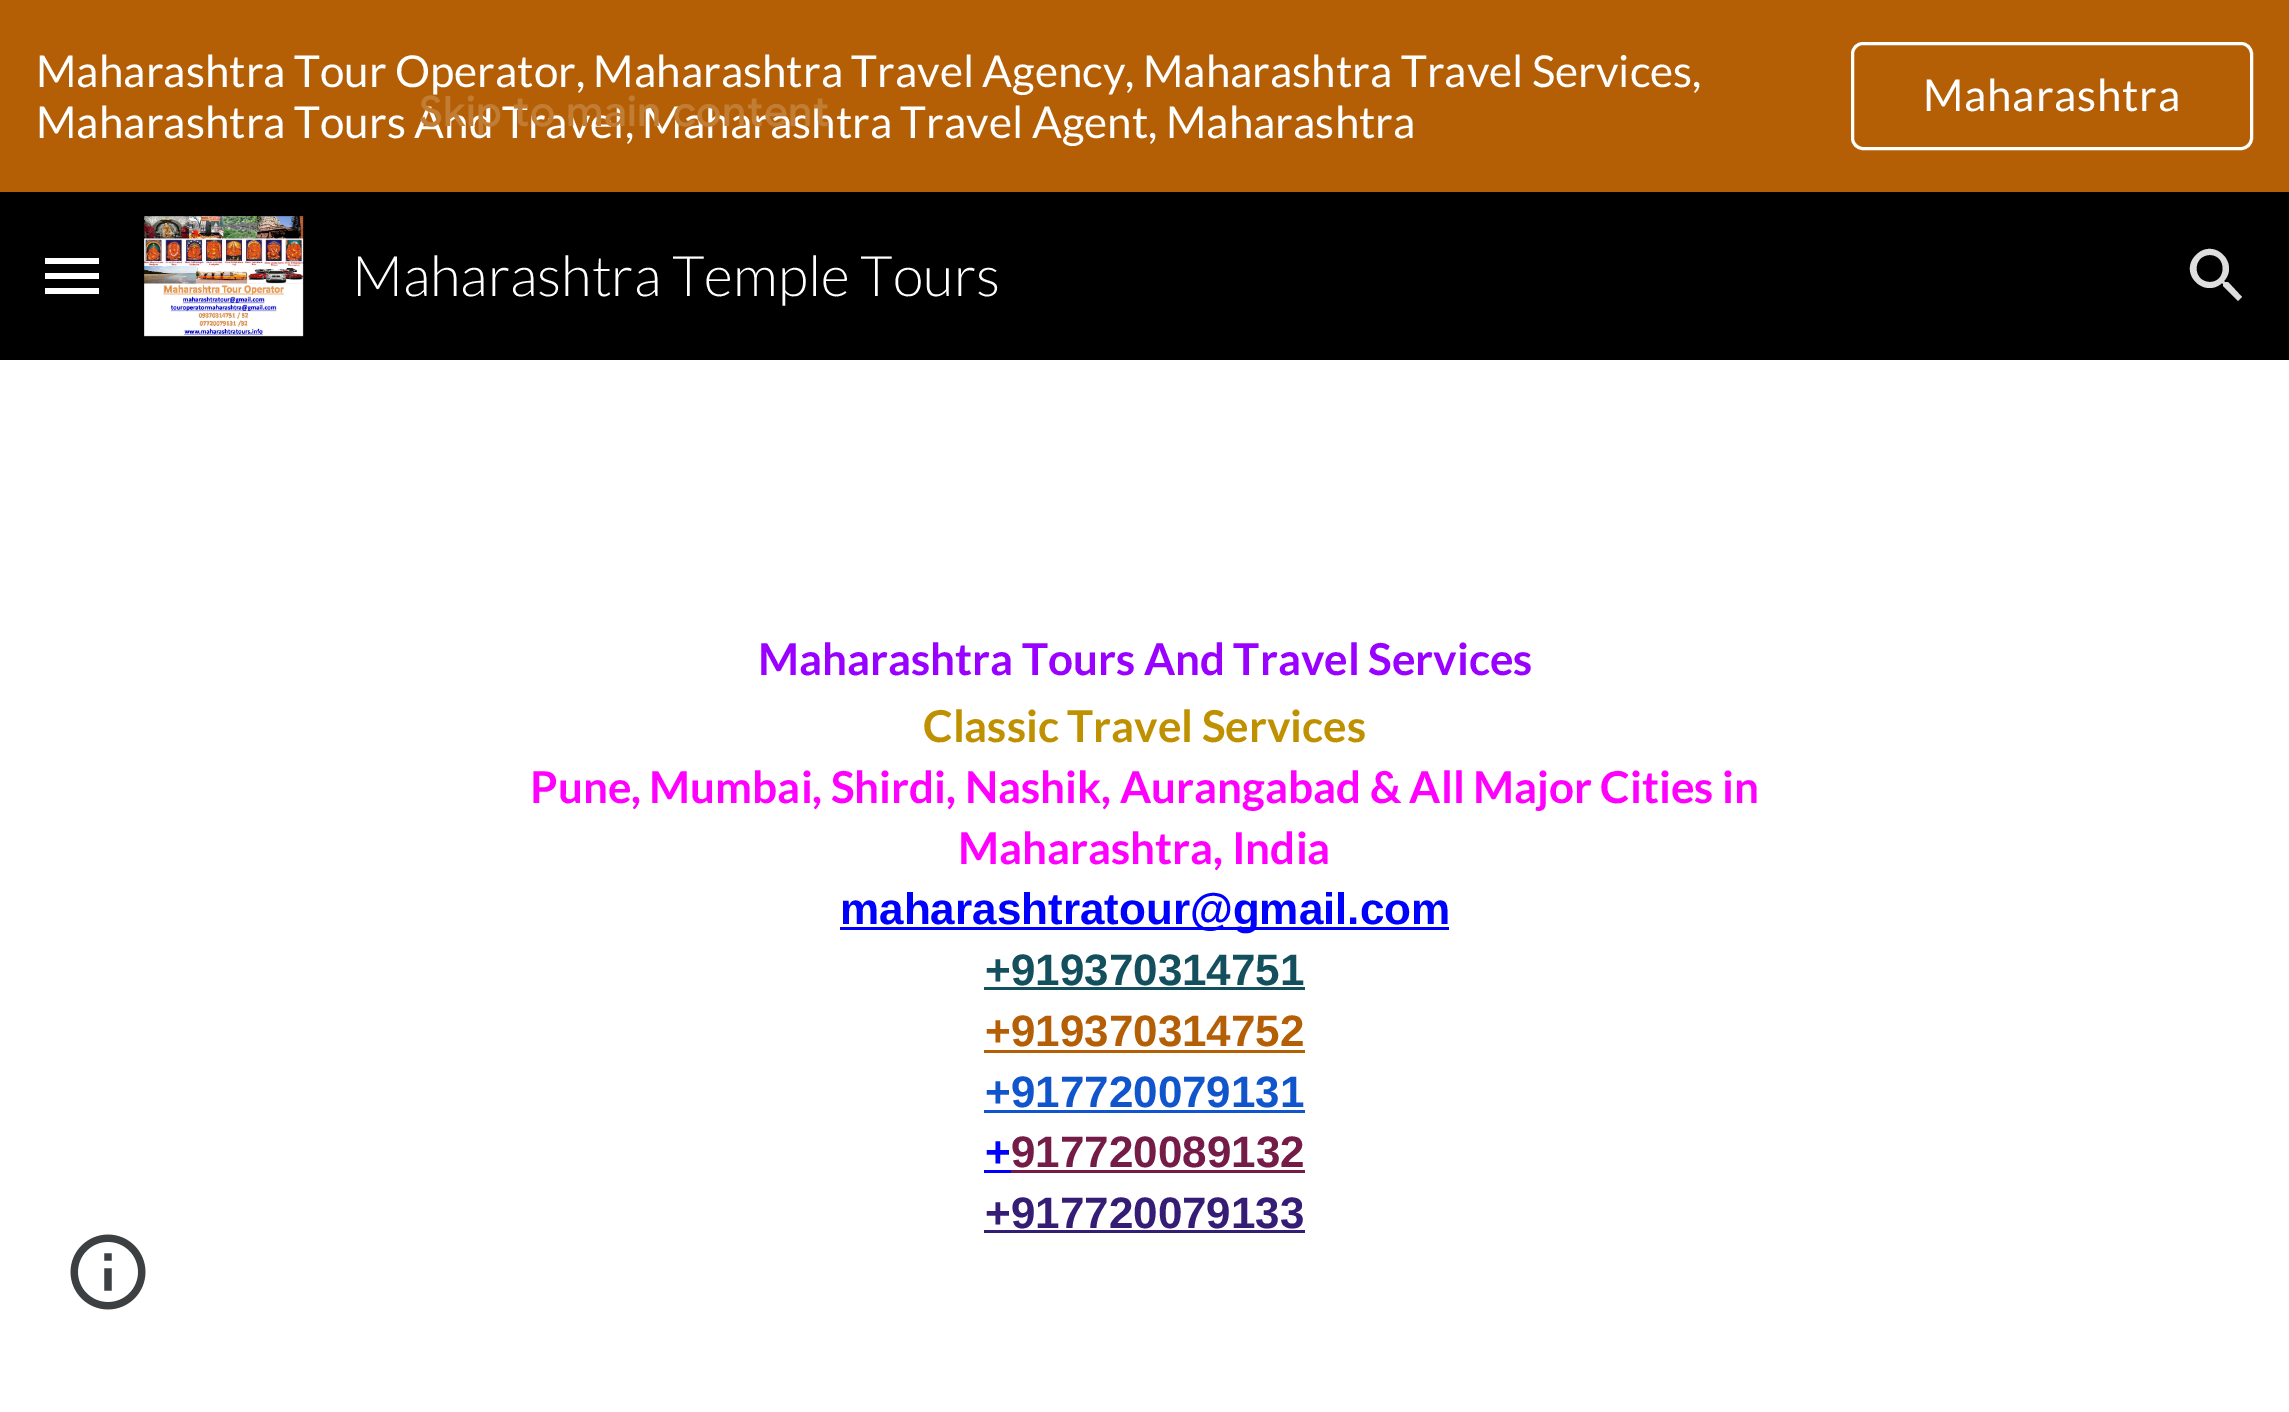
%!PS-Adobe-3.0
%%BoundingBox: 0 0 2289 1412
%%LanguageLevel: 3
%%Pages: 1
%%EndComments
%%BeginProlog
/rrect { 5 dict begin { /r /h /w /y /x } { exch def } forall
  x r add y moveto x w add y 2 copy h add r arct x w add y h add x 1 index r arct
  x y h add x y r arct x y 2 copy exch w add exch r arct closepath end } def
/drawimage { 5 dict begin { /h /w /y /x /name } { exch def } forall
  gsave x y translate w h scale
  w h 8 [w 0 0 h 0 0] name (r) file false 3 colorimage grestore end } def
%%EndProlog
%%BeginSetup
<< /PageSize [2289 1412] >> setpagedevice
%%EndSetup
%%Page: 1 1
0 1412 translate 1 -1 scale
4 setmiterlimit
1 setgray
0 0 2289 1412 rectfill
0.706 0.373 0.024 setrgbcolor
0 0 2289 192 rectfill
1 setgray
3 setlinewidth
1852.5 43.5 399 105 10.5 rrect stroke
0 setgray
0 192 2289 168 rectfill
1 setgray
45 258 54 6 rectfill
45 273 54 6 rectfill
45 288 54 6 rectfill
(images/1.raw) 144 216 160 121 drawimage
0.871 setgray
newpath 2228 282 moveto 2225 282 lineto 2224 281 lineto 2240 263 2214 237 2196 255 curveto 2178 273 2204 299 2222 283 curveto 2223 284 lineto 2223 286 lineto 2238 301 lineto 2242 297 lineto closepath 2210 282 moveto 2192 282 2192 255 2210 255 curveto 2227 255 2227 282 2210 282 curveto closepath fill
0 0 1 setrgbcolor
840 927 609 3 rectfill
0.075 0.31 0.361 setrgbcolor
984 987 321 3 rectfill
0.706 0.373 0.024 setrgbcolor
984 1050 321 3 rectfill
0.067 0.333 0.8 setrgbcolor
984 1110 321 3 rectfill
0 0 1 setrgbcolor
984 1170 27 3 rectfill
0.455 0.106 0.278 setrgbcolor
1011 1170 294 3 rectfill
0.208 0.11 0.459 setrgbcolor
984 1230 321 3 rectfill
(images/2.raw) 70 1234 76 76 drawimage
/Lato-Regular [44 0 0 -44 0 0] selectfont
1 setgray
36 87 moveto -0.25 0 32 (Maharashtra Tour Operator, Maharashtra Travel Agency, Maharashtra Travel Services,) widthshow
36 138 moveto (Maharashtra Tours And Travel, Maharashtra Travel Agent, Maharashtra) show
1923 111 moveto 0.75 0 (Maharashtra) ashow
/Lato-Light [56 0 0 -56 0 0] selectfont
352 296 moveto (Maharashtra Temple Tours) show
/Lato-Bold [44 0 0 -44 0 0] selectfont
0.6 0 1 setrgbcolor
758 675 moveto (Maharashtra Tours And Travel Services) show
0.749 0.565 0 setrgbcolor
923 742 moveto (Classic Travel Services) show
1 0 1 setrgbcolor
530 803 moveto (Pune, Mumbai, Shirdi, Nashik, Aurangabad & All Major Cities in) show
958 864 moveto (Maharashtra, India) show
/LiberationSans-Bold [44 0 0 -44 0 0] selectfont
0 0 1 setrgbcolor
840 924 moveto (maharashtratour@gmail.com) show
0.075 0.31 0.361 setrgbcolor
985 985 moveto (+919370314751) show
0.706 0.373 0.024 setrgbcolor
985 1046 moveto (+919370314752) show
0.067 0.333 0.8 setrgbcolor
985 1107 moveto (+917720079131) show
0 0 1 setrgbcolor
985 1167 moveto (+) show
0.455 0.106 0.278 setrgbcolor
1011 1167 moveto (917720089132) show
0.208 0.11 0.459 setrgbcolor
985 1228 moveto (+917720079133) show
/GoogleSans-Medium [42 0 0 -42 0 0] selectfont
0.761 0.49 0.204 setrgbcolor
419 126 moveto 0.5 0 (Skip to main content) ashow
showpage
%%EOF
